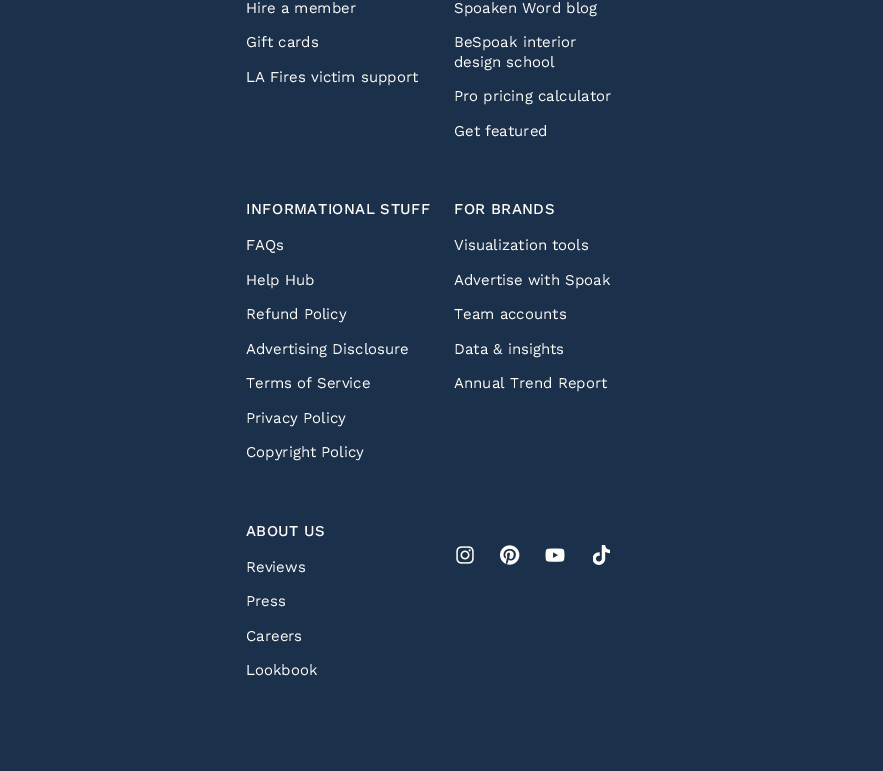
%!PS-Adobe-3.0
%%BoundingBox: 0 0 883 771
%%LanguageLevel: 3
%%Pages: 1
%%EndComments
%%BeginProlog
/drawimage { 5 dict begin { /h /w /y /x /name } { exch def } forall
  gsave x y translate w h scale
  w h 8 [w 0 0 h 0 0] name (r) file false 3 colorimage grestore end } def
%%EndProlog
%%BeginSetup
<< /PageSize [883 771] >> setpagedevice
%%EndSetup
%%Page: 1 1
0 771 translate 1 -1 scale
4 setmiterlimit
0.106 0.188 0.29 setrgbcolor
0 0 883 771 rectfill
(images/1.raw) 456 546 18 18 drawimage
(images/2.raw) 500 545 20 20 drawimage
(images/3.raw) 545 548 20 14 drawimage
(images/4.raw) 593 545 17 20 drawimage
/WorkSans-Regular [15 0 0 -15 0 0] selectfont
0.996 0.992 0.98 setrgbcolor
246 13 moveto (Hire a member) show
246 47 moveto (Gift cards) show
246 82 moveto (LA Fires victim support) show
454 13 moveto (Spoaken Word blog) show
454 47 moveto (BeSpoak interior) show
454 67 moveto (design school) show
454 101 moveto (Pro pricing calculator) show
454 136 moveto (Get featured) show
/WorkSans-Medium [15 0 0 -15 0 0] selectfont
246 214 moveto 0.4 0 (INFORMATIONAL STUFF) ashow
/WorkSans-Regular [15 0 0 -15 0 0] selectfont
246 250 moveto (FAQs) show
246 285 moveto (Help Hub) show
246 319 moveto (Refund Policy) show
246 354 moveto (Advertising Disclosure) show
246 388 moveto (Terms of Service) show
246 423 moveto (Privacy Policy) show
246 457 moveto (Copyright Policy) show
/WorkSans-Medium [15 0 0 -15 0 0] selectfont
454 214 moveto 0.4 0 (FOR BRANDS) ashow
/WorkSans-Regular [15 0 0 -15 0 0] selectfont
454 250 moveto (Visualization tools) show
454 285 moveto (Advertise with Spoak) show
454 319 moveto (Team accounts) show
454 354 moveto (Data & insights) show
454 388 moveto (Annual Trend Report) show
/WorkSans-Medium [15 0 0 -15 0 0] selectfont
246 536 moveto 0.4 0 (ABOUT US) ashow
/WorkSans-Regular [15 0 0 -15 0 0] selectfont
246 572 moveto (Reviews) show
246 606 moveto (Press) show
246 641 moveto (Careers) show
246 675 moveto (Lookbook) show
showpage
%%EOF
